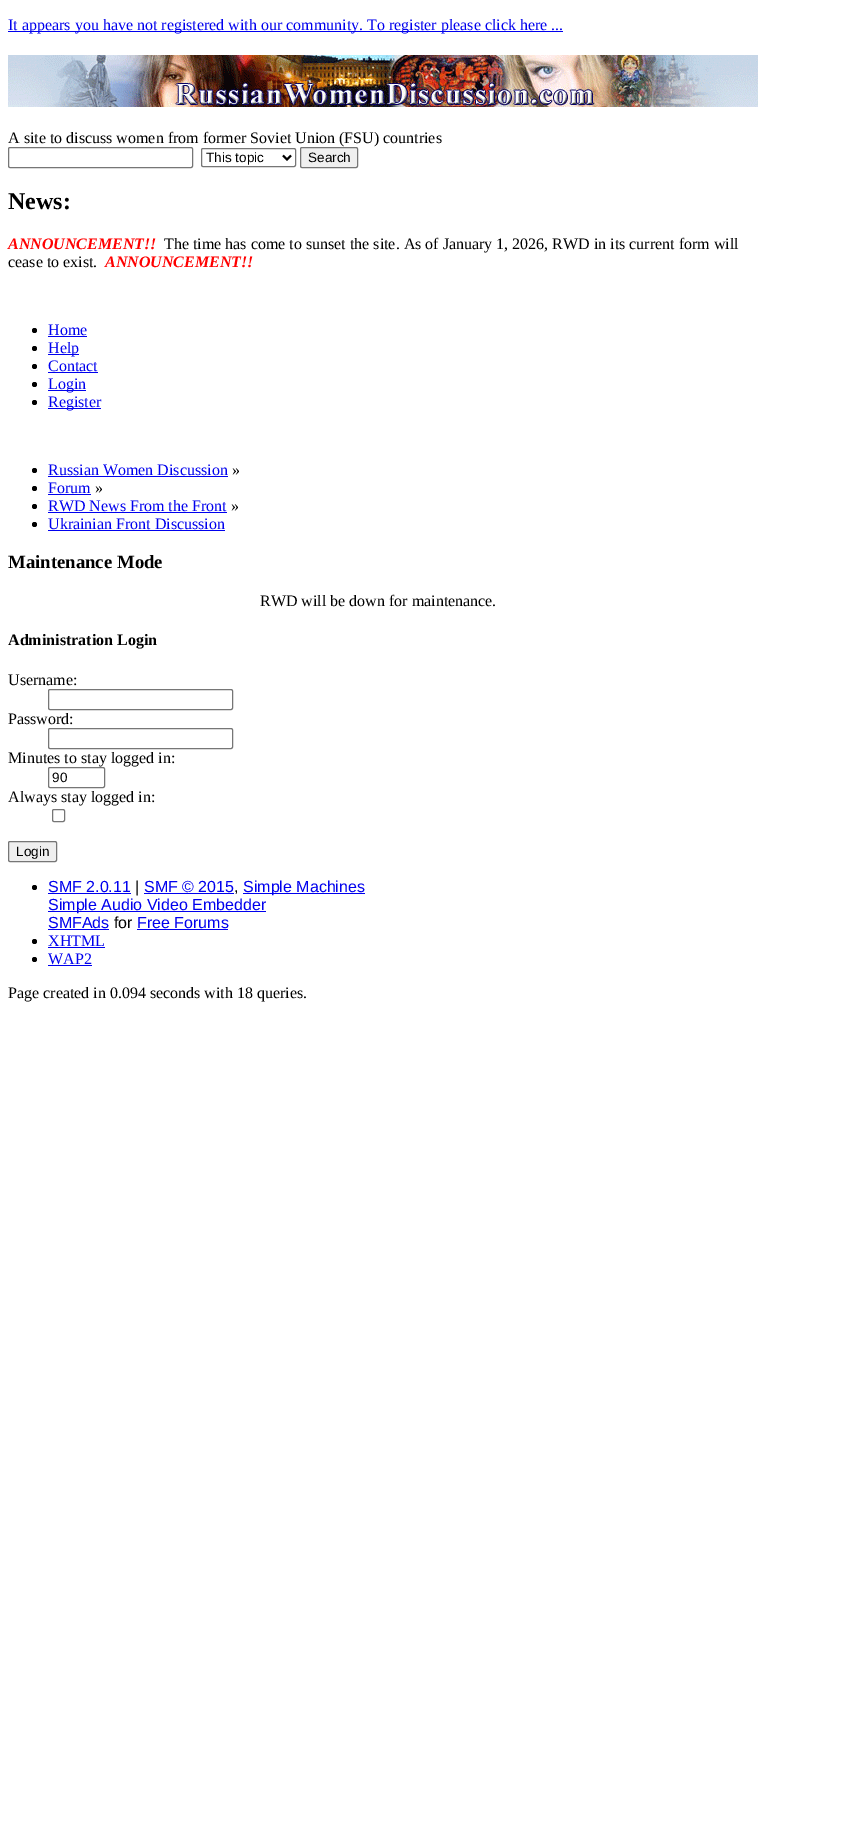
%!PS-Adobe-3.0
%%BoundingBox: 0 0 855 1828
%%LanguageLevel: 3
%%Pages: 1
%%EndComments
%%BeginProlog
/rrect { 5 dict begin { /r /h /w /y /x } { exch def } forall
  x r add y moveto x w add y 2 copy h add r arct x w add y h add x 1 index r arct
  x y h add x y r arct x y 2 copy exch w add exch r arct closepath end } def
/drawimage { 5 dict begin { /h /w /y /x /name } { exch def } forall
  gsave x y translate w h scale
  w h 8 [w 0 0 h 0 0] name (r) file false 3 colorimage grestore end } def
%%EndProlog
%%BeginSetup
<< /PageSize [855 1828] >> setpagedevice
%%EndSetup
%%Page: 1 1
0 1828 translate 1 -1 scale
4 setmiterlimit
1 setgray
0 0 855 1828 rectfill
0 0 0.933 setrgbcolor
8 31 555 1 rectfill
(images/1.raw) 8 55 750 52 drawimage
0.463 setgray
8.5 147.5 184 20 1.5 rrect stroke
201.5 148.5 94 18 1.5 rrect stroke
0 setgray
2 setlinewidth
newpath 283 155.5 moveto 287 159.5 lineto 291 155.5 lineto stroke
0.937 setgray
300.5 147.5 57 20 1.5 rrect gsave fill grestore
0.463 setgray
1 setlinewidth
stroke
0 setgray
newpath 34.5 330.5 2.5 0 360 arc closepath fill
0 0 0.933 setrgbcolor
48 336 39 1 rectfill
0 setgray
newpath 34.5 348.5 2.5 0 360 arc closepath fill
0 0 0.933 setrgbcolor
48 354 31 1 rectfill
0 setgray
newpath 34.5 366.5 2.5 0 360 arc closepath fill
0 0 0.933 setrgbcolor
48 372 50 1 rectfill
0 setgray
newpath 34.5 384.5 2.5 0 360 arc closepath fill
0 0 0.933 setrgbcolor
48 390 38 1 rectfill
0 setgray
newpath 34.5 402.5 2.5 0 360 arc closepath fill
0 0 0.933 setrgbcolor
48 408 53 1 rectfill
0 setgray
newpath 34.5 470.5 2.5 0 360 arc closepath fill
0 0 0.933 setrgbcolor
48 476 180 1 rectfill
0 setgray
newpath 34.5 488.5 2.5 0 360 arc closepath fill
0 0 0.933 setrgbcolor
48 494 43 1 rectfill
0 setgray
newpath 34.5 506.5 2.5 0 360 arc closepath fill
0 0 0.933 setrgbcolor
48 512 179 1 rectfill
0 setgray
newpath 34.5 524.5 2.5 0 360 arc closepath fill
0 0 0.933 setrgbcolor
48 530 177 1 rectfill
0.463 setgray
48.5 689.5 184 20 1.5 rrect stroke
48.5 728.5 184 20 1.5 rrect stroke
48.5 767.5 56 20 1.5 rrect stroke
52.5 809.5 12 12 1.5 rrect stroke
0.937 setgray
8.5 841.5 48 20 1.5 rrect gsave fill grestore
0.463 setgray
stroke
0 setgray
newpath 34.5 887.5 2.5 0 360 arc closepath fill
0 0 0.933 setrgbcolor
48 893 83 1 rectfill
144 893 90 1 rectfill
243 893 122 1 rectfill
48 911 218 1 rectfill
48 929 61 1 rectfill
137 929 91 1 rectfill
0 setgray
newpath 34.5 941.5 2.5 0 360 arc closepath fill
0 0 0.933 setrgbcolor
48 947 57 1 rectfill
0 setgray
newpath 34.5 959.5 2.5 0 360 arc closepath fill
0 0 0.933 setrgbcolor
48 965 44 1 rectfill
/LiberationSerif-Regular [16 0 0 -16 0 0] selectfont
8 30 moveto (It appears you have not registered with our community. To register please click here ...) show
0 setgray
8 143 moveto (A site to discuss women from former Soviet Union \(FSU\) countries) show
/LiberationSans-Regular [13.5 0 0 -13.5 0 0] selectfont
206 162 moveto (This topic) show
308 162 moveto (Search) show
/LiberationSerif-Bold [24 0 0 -24 0 0] selectfont
8 209 moveto (News:) show
/LiberationSerif-BoldItalic [16 0 0 -16 0 0] selectfont
1 0 0 setrgbcolor
8 249 moveto (ANNOUNCEMENT!!) show
/LiberationSerif-Regular [16 0 0 -16 0 0] selectfont
0 setgray
164 249 moveto (The time has come to sunset the site. As of January 1, 2026, RWD in its current form will) show
8 267 moveto (cease to exist.) show
/LiberationSerif-BoldItalic [16 0 0 -16 0 0] selectfont
1 0 0 setrgbcolor
105 267 moveto (ANNOUNCEMENT!!) show
/LiberationSerif-Regular [16 0 0 -16 0 0] selectfont
0 0 0.933 setrgbcolor
48 335 moveto (Home) show
48 353 moveto (Help) show
48 371 moveto (Contact) show
48 389 moveto (Login) show
48 407 moveto (Register) show
48 475 moveto (Russian Women Discussion) show
0 setgray
232 475 moveto (») show
0 0 0.933 setrgbcolor
48 493 moveto (Forum) show
0 setgray
95 493 moveto (») show
0 0 0.933 setrgbcolor
48 511 moveto (RWD News From the Front) show
0 setgray
231 511 moveto (») show
0 0 0.933 setrgbcolor
48 529 moveto (Ukrainian Front Discussion) show
/LiberationSerif-Bold [18.75 0 0 -18.75 0 0] selectfont
0 setgray
8 568 moveto (Maintenance Mode) show
/LiberationSerif-Regular [16 0 0 -16 0 0] selectfont
260 606 moveto (RWD will be down for maintenance.) show
/LiberationSerif-Bold [16 0 0 -16 0 0] selectfont
8 645 moveto (Administration Login) show
/LiberationSerif-Regular [16 0 0 -16 0 0] selectfont
8 685 moveto (Username:) show
8 724 moveto (Password:) show
8 763 moveto (Minutes to stay logged in:) show
/LiberationSans-Regular [13.5 0 0 -13.5 0 0] selectfont
52 782 moveto (90) show
/LiberationSerif-Regular [16 0 0 -16 0 0] selectfont
8 802 moveto (Always stay logged in:) show
/LiberationSans-Regular [13.5 0 0 -13.5 0 0] selectfont
16 856 moveto (Login) show
/LiberationSans-Regular [16 0 0 -16 0 0] selectfont
0 0 0.933 setrgbcolor
48 892 moveto (SMF 2.0.11) show
0 setgray
135 892 moveto (|) show
0 0 0.933 setrgbcolor
144 892 moveto (SMF © 2015) show
243 892 moveto (Simple Machines) show
0 setgray
234 892 moveto (,) show
0 0 0.933 setrgbcolor
48 910 moveto (Simple Audio Video Embedder) show
48 928 moveto (SMFAds) show
0 setgray
114 928 moveto (for) show
0 0 0.933 setrgbcolor
137 928 moveto (Free Forums) show
/LiberationSerif-Regular [16 0 0 -16 0 0] selectfont
48 946 moveto (XHTML) show
48 964 moveto (WAP2) show
0 setgray
8 998 moveto (Page created in 0.094 seconds with 18 queries.) show
showpage
%%EOF
